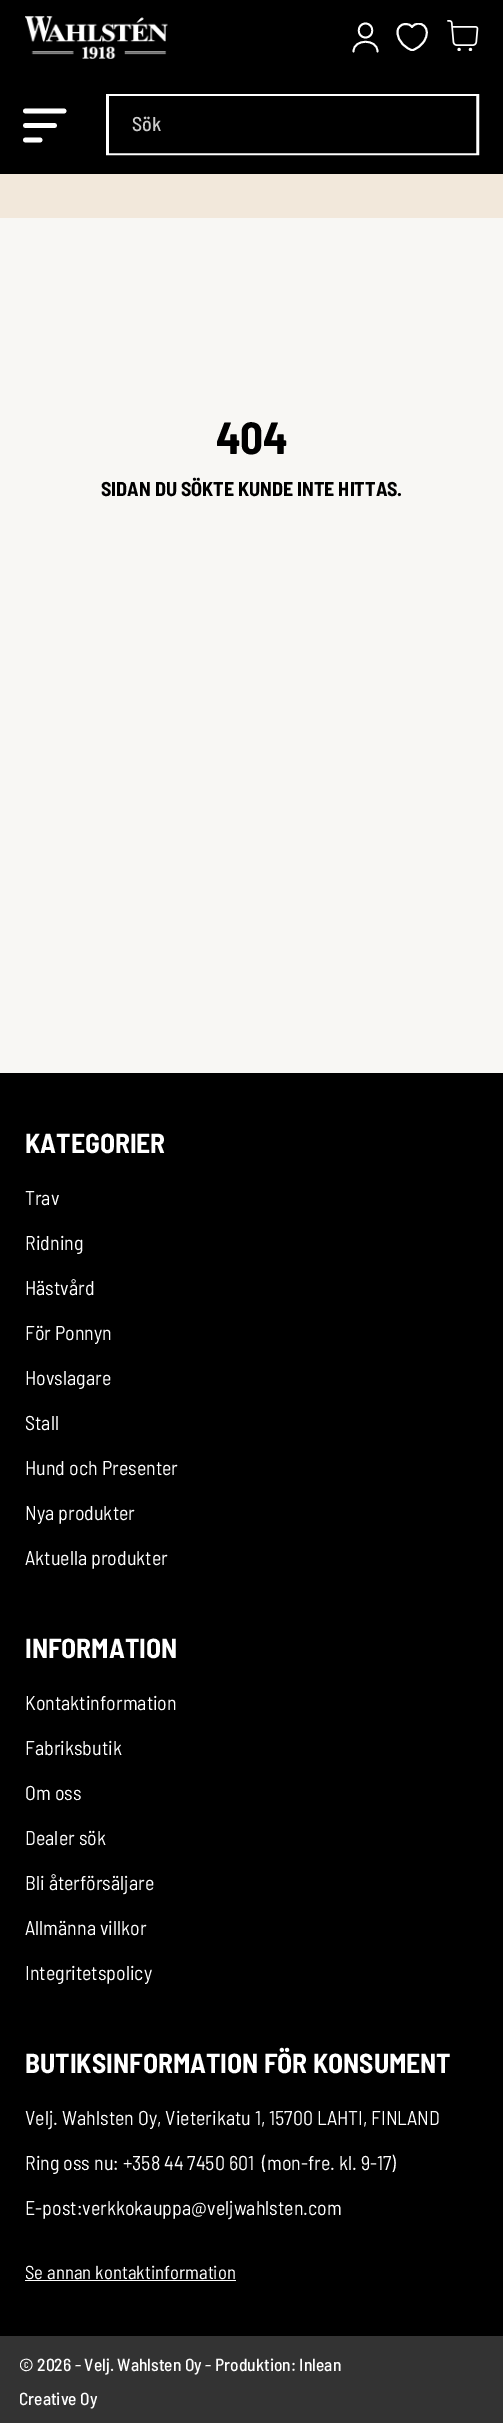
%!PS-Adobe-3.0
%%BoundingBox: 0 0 503 2423
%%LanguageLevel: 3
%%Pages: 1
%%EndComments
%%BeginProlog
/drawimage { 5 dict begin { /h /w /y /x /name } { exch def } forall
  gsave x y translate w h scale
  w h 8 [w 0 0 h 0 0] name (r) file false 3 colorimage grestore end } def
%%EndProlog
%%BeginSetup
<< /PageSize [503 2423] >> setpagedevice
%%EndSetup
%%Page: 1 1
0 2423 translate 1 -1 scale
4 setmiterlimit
0.973 0.969 0.957 setrgbcolor
0 0 503 2423 rectfill
0 setgray
0 0 503 174 rectfill
(images/1.raw) 25 16 143 43 drawimage
1 setgray
1.8 setlinewidth
1 setlinecap
1 setlinejoin
newpath 377.5 51.5 moveto 377.5 38.5 353.5 38.5 353.5 51.5 curveto 365.5 37.5 moveto 374.5 37.5 374.5 23.5 365.5 23.5 curveto 356.5 23.5 356.5 37.5 365.5 37.5 curveto closepath stroke
gsave
396 23 33 28 rectclip
1.9 setlinewidth
newpath 413 50 moveto 411.5 50 lineto 407 48.5 397.5 42.5 397.5 32 curveto 397.5 27.5 401 24 405.5 24 curveto 408.5 24 411 25 412 27 curveto 419 18 433.5 28 423.5 42 curveto 421 45.5 417.5 48.5 413 50 curveto closepath stroke
grestore
(images/2.raw) 447 20 32 31 drawimage
4.8 setlinewidth
0 setlinejoin
newpath 25.5 140 moveto 40 140 lineto 25.5 125.5 moveto 54.5 125.5 lineto 25.5 111 moveto 64 111 lineto stroke
3 setlinewidth
0 setlinecap
107.5 95.5 370 58 rectstroke
0 setgray
110.5 97.5 364 54 rectstroke
0.949 0.91 0.859 setrgbcolor
0 174 503 44 rectfill
0 setgray
0 1073 503 1263 rectfill
1 setgray
25 2280 211 1 rectfill
0.2 setgray
0 2336 503 87 rectfill
/BarlowSemiCondensed-Medium [20 0 0 -20 0 0] selectfont
0.796 setgray
132 131 moveto (Sök) show
/BarlowSemiCondensed-Bold [45 0 0 -45 0 0] selectfont
0 setgray
216 454 moveto (404) show
/BarlowSemiCondensed-Bold [20 0 0 -20 0 0] selectfont
101 496 moveto (SIDAN DU SÖKTE KUNDE INTE HITTAS.) show
/BarlowSemiCondensed-Bold [27.5 0 0 -27.5 0 0] selectfont
1 setgray
25 1153 moveto (KATEGORIER) show
/BarlowSemiCondensed-Regular [20 0 0 -20 0 0] selectfont
25 1205 moveto (Trav) show
25 1250 moveto (Ridning) show
25 1295 moveto (Hästvård) show
25 1340 moveto (För Ponnyn) show
25 1385 moveto (Hovslagare) show
25 1430 moveto (Stall) show
25 1475 moveto (Hund och Presenter) show
25 1520 moveto (Nya produkter) show
25 1565 moveto (Aktuella produkter) show
/BarlowSemiCondensed-Bold [27.5 0 0 -27.5 0 0] selectfont
25 1658 moveto (INFORMATION) show
/BarlowSemiCondensed-Regular [20 0 0 -20 0 0] selectfont
25 1710 moveto (Kontaktinformation) show
25 1755 moveto (Fabriksbutik) show
25 1800 moveto (Om oss) show
25 1845 moveto (Dealer sök) show
25 1890 moveto (Bli återförsäljare) show
25 1935 moveto (Allmänna villkor) show
25 1980 moveto (Integritetspolicy) show
/BarlowSemiCondensed-Bold [27.5 0 0 -27.5 0 0] selectfont
25 2073 moveto (BUTIKSINFORMATION FÖR KONSUMENT) show
/BarlowSemiCondensed-Regular [20 0 0 -20 0 0] selectfont
25 2125 moveto (Velj. Wahlsten Oy, Vieterikatu 1, 15700 LAHTI, FINLAND) show
25 2170 moveto (Ring oss nu: +358 44 7450 601) show
262 2170 moveto (\(mon-fre. kl. 9-17\)) show
25 2215 moveto (E-post:verkkokauppa@veljwahlsten.com) show
/BarlowSemiCondensed-Regular [18.75 0 0 -18.75 0 0] selectfont
25 2279 moveto (Se annan kontaktinformation) show
/BarlowSemiCondensed-Medium [17.5 0 0 -17.5 0 0] selectfont
19 2371 moveto (© 2026 - Velj. Wahlsten Oy - Produktion: Inlean) show
19 2405 moveto (Creative Oy) show
showpage
%%EOF
